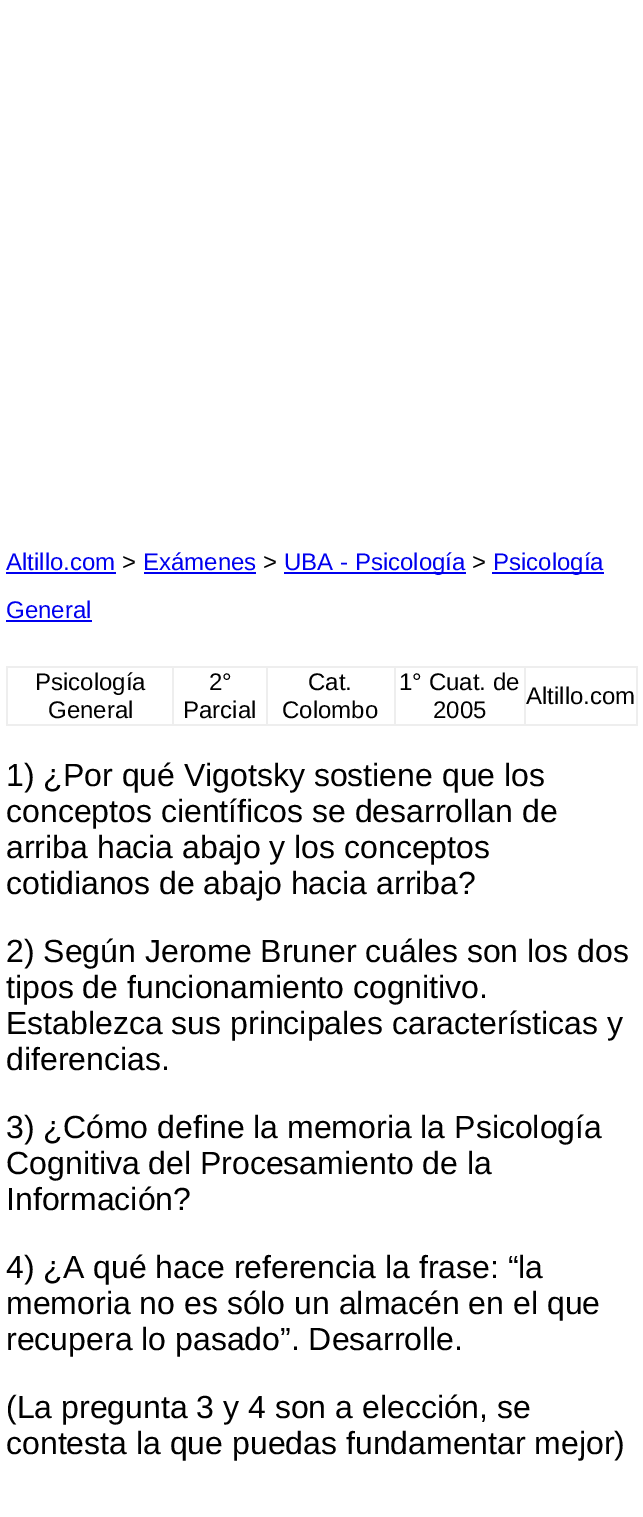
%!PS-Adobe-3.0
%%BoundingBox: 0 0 643 1517
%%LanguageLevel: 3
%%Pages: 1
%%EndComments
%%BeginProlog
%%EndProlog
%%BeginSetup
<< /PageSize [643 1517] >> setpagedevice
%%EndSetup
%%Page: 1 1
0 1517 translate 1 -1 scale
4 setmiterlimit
1 setgray
0 0 643 1517 rectfill
0 0 0.933 setrgbcolor
6 572 110 2 rectfill
144 572 112 2 rectfill
284 572 182 2 rectfill
492 572 112 2 rectfill
6 620 86 2 rectfill
0.933 setgray
524 666 114 2 rectfill
636 666 2 60 rectfill
524 724 114 2 rectfill
524 666 2 60 rectfill
394 666 132 2 rectfill
394 724 132 2 rectfill
394 666 2 60 rectfill
266 666 130 2 rectfill
266 724 130 2 rectfill
266 666 2 60 rectfill
172 666 96 2 rectfill
172 724 96 2 rectfill
172 666 2 60 rectfill
6 666 168 2 rectfill
6 724 168 2 rectfill
6 666 2 60 rectfill
/LiberationSans-Regular [24 0 0 -24 0 0] selectfont
0 0 0.933 setrgbcolor
6 570 moveto (Altillo.com) show
0 setgray
122 570 moveto (>) show
0 0 0.933 setrgbcolor
143 570 moveto (Exámenes) show
0 setgray
263 570 moveto (>) show
0 0 0.933 setrgbcolor
284 570 moveto (UBA - Psicología) show
0 setgray
472 570 moveto (>) show
0 0 0.933 setrgbcolor
493 570 moveto (Psicología) show
6 618 moveto (General) show
0 setgray
35 690 moveto (Psicología) show
48 718 moveto (General) show
209 690 moveto (2°) show
183 718 moveto (Parcial) show
308 690 moveto (Cat.) show
282 718 moveto (Colombo) show
399 690 moveto (1° Cuat. de) show
433 718 moveto (2005) show
526 704 moveto (Altillo.com) show
/LiberationSans-Regular [32 0 0 -32 0 0] selectfont
6 786 moveto (1\) ¿Por qué Vigotsky sostiene que los) show
6 822 moveto (conceptos científicos se desarrollan de) show
6 858 moveto (arriba hacia abajo y los conceptos) show
6 894 moveto (cotidianos de abajo hacia arriba?) show
6 962 moveto (2\) Según Jerome Bruner cuáles son los dos) show
6 998 moveto (tipos de funcionamiento cognitivo.) show
6 1034 moveto (Establezca sus principales características y) show
6 1070 moveto (diferencias.) show
6 1138 moveto (3\) ¿Cómo define la memoria la Psicología) show
6 1174 moveto (Cognitiva del Procesamiento de la) show
6 1210 moveto (Información?) show
6 1278 moveto (4\) ¿A qué hace referencia la frase: “la) show
6 1314 moveto (memoria no es sólo un almacén en el que) show
6 1350 moveto (recupera lo pasado”. Desarrolle.) show
6 1418 moveto (\(La pregunta 3 y 4 son a elección, se) show
6 1454 moveto (contesta la que puedas fundamentar mejor\)) show
showpage
%%EOF
